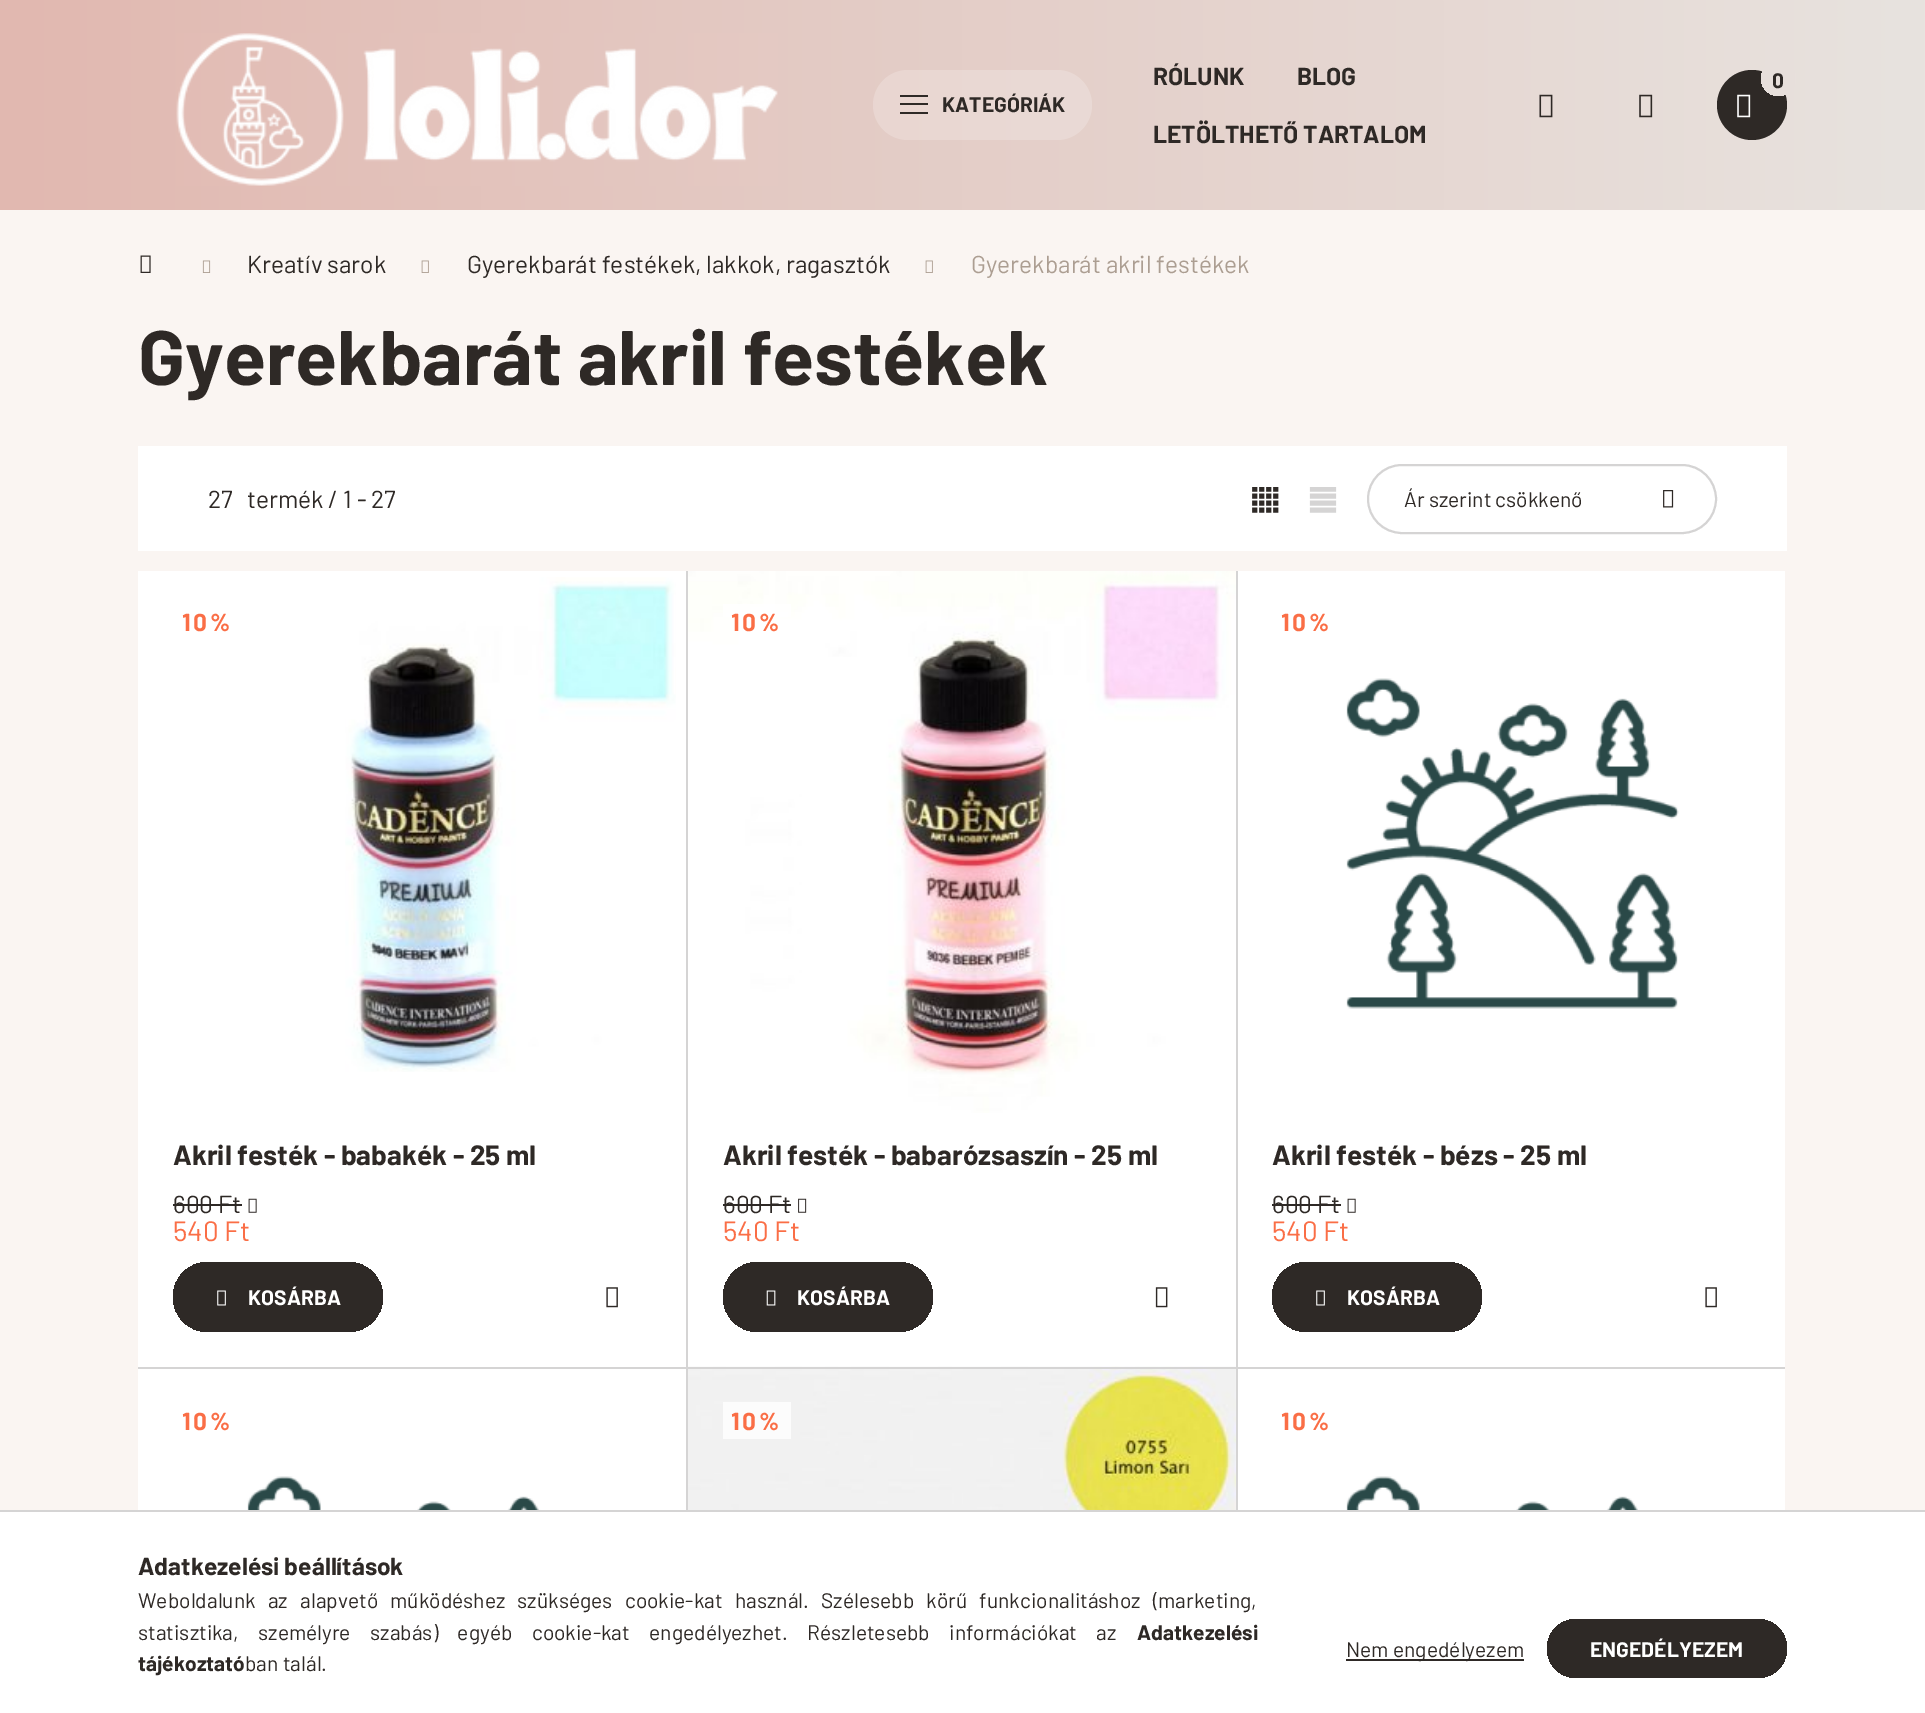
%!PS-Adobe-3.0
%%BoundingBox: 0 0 1925 1713
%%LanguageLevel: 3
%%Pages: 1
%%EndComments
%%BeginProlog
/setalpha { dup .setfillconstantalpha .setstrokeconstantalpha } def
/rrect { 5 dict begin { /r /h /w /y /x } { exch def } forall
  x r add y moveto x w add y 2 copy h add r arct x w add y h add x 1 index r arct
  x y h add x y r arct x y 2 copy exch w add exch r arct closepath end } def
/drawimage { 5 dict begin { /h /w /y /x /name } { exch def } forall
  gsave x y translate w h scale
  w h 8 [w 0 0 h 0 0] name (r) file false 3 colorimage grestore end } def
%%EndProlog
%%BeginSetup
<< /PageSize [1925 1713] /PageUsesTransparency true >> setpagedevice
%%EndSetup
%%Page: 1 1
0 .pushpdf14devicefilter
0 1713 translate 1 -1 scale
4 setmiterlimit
0.98 0.961 0.949 setrgbcolor
0 0 1925 1713 rectfill
gsave newpath 0 0 moveto 1925 0 lineto 1925 210 lineto 0 210 lineto closepath clip newpath
<< /ShadingType 2 /ColorSpace /DeviceRGB /Coords [0 857 1925 857] /Extend [true true] /Function << /FunctionType 2 /Domain [0 1] /C0 [0.882 0.722 0.69] /C1 [0.91 0.89 0.875] /N 1 >> >> shfill grestore
(images/1.raw) 176 33 602 153 drawimage
0.2 setalpha
1 setgray
873 70 219 70 35 rrect fill
1 setalpha
0.18 0.161 0.149 setrgbcolor
900 95 28 2 rectfill
900 103 28 2 rectfill
900 112 28 2 rectfill
newpath 1752 105 35 0 360 arc closepath fill
gsave newpath 1778.5 78.5 17.5 0 360 arc closepath clip newpath
<< /ShadingType 2 /ColorSpace /DeviceRGB /Coords [0 857 1925 857] /Extend [true true] /Function << /FunctionType 2 /Domain [0 1] /C0 [0.882 0.722 0.69] /C1 [0.91 0.89 0.875] /N 1 >> >> shfill grestore
(images/2.raw) 1737 94 14 24 drawimage
(images/3.raw) 1539 94 14 24 drawimage
(images/4.raw) 1639 94 14 24 drawimage
(images/5.raw) 140 255 11 18 drawimage
(images/6.raw) 202 260 9 13 drawimage
(images/7.raw) 421 260 8 13 drawimage
(images/7.raw) 925 260 8 13 drawimage
1 setgray
138 446 1649 105 rectfill
(images/8.raw) 1252 487 27 26 drawimage
(images/9.raw) 1309 487 28 26 drawimage
0.835 0.831 0.831 setrgbcolor
2 setlinewidth
1368 465 348 68 34 rrect stroke
(images/10.raw) 1663 490 11 18 drawimage
1 setgray
138 571 548 796 rectfill
(images/11.raw) 345 577 331 495 drawimage
0.18 0.161 0.149 setrgbcolor
173 1204 69 2 rectfill
(images/12.raw) 248 1198 9 15 drawimage
gsave 173 1262 210 70 35 rrect clip newpath
<< /ShadingType 2 /ColorSpace /DeviceRGB /Coords [173 1297 803 1297] /Extend [true true] /Function << /FunctionType 3 /Domain [0 1] /Functions [<< /FunctionType 2 /Domain [0 1] /C0 [0.18 0.161 0.149] /C1 [0.18 0.161 0.149] /N 1 >> << /FunctionType 2 /Domain [0 1] /C0 [0.18 0.161 0.149] /C1 [0.882 0.722 0.69] /N 1 >> << /FunctionType 2 /Domain [0 1] /C0 [0.882 0.722 0.69] /C1 [0.882 0.722 0.69] /N 1 >>] /Bounds [0.33 0.67] /Encode [0 1 0 1 0 1] >> >> shfill grestore
(images/13.raw) 217 1290 9 16 drawimage
(images/14.raw) 606 1287 12 21 drawimage
0.835 0.831 0.831 setrgbcolor
686 569 2 798 rectfill
1236 569 2 798 rectfill
0.98 0.961 0.949 setrgbcolor
686 569 552 2 rectfill
1 setgray
688 1113 548 254 rectfill
(images/21.raw) 688 1366 548 144 drawimage
0.835 0.831 0.831 setrgbcolor
138 1367 1099 2 rectfill
1236 1367 2 143 rectfill
1237 1367 550 2 rectfill
0.98 0.961 0.949 setrgbcolor
1785 1367 2 2 rectfill
(images/15.raw) 688 571 548 542 drawimage
0.8 setalpha
1 setgray
723 604 68 13 rectfill
1 setalpha
0.18 0.161 0.149 setrgbcolor
723 1204 68 2 rectfill
(images/16.raw) 798 1198 9 15 drawimage
gsave 723 1262 210 70 35 rrect clip newpath
<< /ShadingType 2 /ColorSpace /DeviceRGB /Coords [723 1297 1353 1297] /Extend [true true] /Function << /FunctionType 3 /Domain [0 1] /Functions [<< /FunctionType 2 /Domain [0 1] /C0 [0.18 0.161 0.149] /C1 [0.18 0.161 0.149] /N 1 >> << /FunctionType 2 /Domain [0 1] /C0 [0.18 0.161 0.149] /C1 [0.882 0.722 0.69] /N 1 >> << /FunctionType 2 /Domain [0 1] /C0 [0.882 0.722 0.69] /C1 [0.882 0.722 0.69] /N 1 >>] /Bounds [0.33 0.67] /Encode [0 1 0 1 0 1] >> >> shfill grestore
(images/17.raw) 766 1290 10 16 drawimage
(images/18.raw) 1155 1287 13 21 drawimage
1 setgray
1238 571 547 796 rectfill
(images/19.raw) 1346 678 333 331 drawimage
0.18 0.161 0.149 setrgbcolor
1272 1204 69 2 rectfill
(images/12.raw) 1347 1198 9 15 drawimage
gsave 1272 1262 210 70 35 rrect clip newpath
<< /ShadingType 2 /ColorSpace /DeviceRGB /Coords [1272 1297 1902 1297] /Extend [true true] /Function << /FunctionType 3 /Domain [0 1] /Functions [<< /FunctionType 2 /Domain [0 1] /C0 [0.18 0.161 0.149] /C1 [0.18 0.161 0.149] /N 1 >> << /FunctionType 2 /Domain [0 1] /C0 [0.18 0.161 0.149] /C1 [0.882 0.722 0.69] /N 1 >> << /FunctionType 2 /Domain [0 1] /C0 [0.882 0.722 0.69] /C1 [0.882 0.722 0.69] /N 1 >>] /Bounds [0.33 0.67] /Encode [0 1 0 1 0 1] >> >> shfill grestore
(images/13.raw) 1316 1290 9 16 drawimage
(images/14.raw) 1705 1287 12 21 drawimage
1 setgray
138 1369 548 141 rectfill
(images/20.raw) 247 1476 333 34 drawimage
0.835 0.831 0.831 setrgbcolor
686 1367 2 143 rectfill
0.988 setgray
723 1402 68 37 rectfill
1 setgray
1238 1369 547 141 rectfill
(images/20.raw) 1346 1476 333 34 drawimage
0 1512 1925 201 rectfill
0.835 0.831 0.831 setrgbcolor
0 1510 1925 2 rectfill
0.18 0.161 0.149 setrgbcolor
1346 1659 178 2 rectfill
gsave 1547 1619 240 59 29.5 rrect clip newpath
<< /ShadingType 2 /ColorSpace /DeviceRGB /Coords [1547 1649 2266 1649] /Extend [true true] /Function << /FunctionType 3 /Domain [0 1] /Functions [<< /FunctionType 2 /Domain [0 1] /C0 [0.18 0.161 0.149] /C1 [0.18 0.161 0.149] /N 1 >> << /FunctionType 2 /Domain [0 1] /C0 [0.18 0.161 0.149] /C1 [0.882 0.722 0.69] /N 1 >> << /FunctionType 2 /Domain [0 1] /C0 [0.882 0.722 0.69] /C1 [0.882 0.722 0.69] /N 1 >>] /Bounds [0.33 0.67] /Encode [0 1 0 1 0 1] >> >> shfill grestore
/Barlow-Bold [21 0 0 -21 0 0] selectfont
942 112 moveto (KATEGÓRIÁK) show
/Barlow-Bold [24.5 0 0 -24.5 0 0] selectfont
1153 85 moveto (RÓLUNK) show
1297 85 moveto (BLOG) show
1153 143 moveto (LETÖLTHETŐ TARTALOM) show
/Barlow-Bold [21 0 0 -21 0 0] selectfont
1772 88 moveto (0) show
/Barlow-Regular [24.5 0 0 -24.5 0 0] selectfont
247 273 moveto (Kreatív sarok) show
467 273 moveto (Gyerekbarát festékek, lakkok, ragasztók) show
0.675 0.62 0.573 setrgbcolor
971 273 moveto (Gyerekbarát akril festékek) show
/Barlow-Bold [77 0 0 -77 0 0] selectfont
0.18 0.161 0.149 setrgbcolor
138 385 moveto (Gyerekbarát akril festékek) show
/Barlow-Regular [24.5 0 0 -24.5 0 0] selectfont
208 508 moveto (27) show
247 508 moveto (termék / 1 - 27) show
/Barlow-Regular [21 0 0 -21 0 0] selectfont
1404 507 moveto (Ár szerint csökkenő) show
/Barlow-Bold [24.5 0 0 -24.5 0 0] selectfont
0.98 0.431 0.275 setrgbcolor
182 631 moveto 2.5 0 (10%) ashow
/Barlow-Bold [28 0 0 -28 0 0] selectfont
0.18 0.161 0.149 setrgbcolor
173 1165 moveto (Akril festék - babakék - 25 ml) show
/Barlow-Regular [24.5 0 0 -24.5 0 0] selectfont
173 1213 moveto (600 Ft) show
/Barlow-Regular [28 0 0 -28 0 0] selectfont
0.98 0.431 0.275 setrgbcolor
173 1241 moveto (540 Ft) show
/Barlow-Bold [21 0 0 -21 0 0] selectfont
1 setgray
248 1305 moveto (KOSÁRBA) show
/Barlow-Bold [24.5 0 0 -24.5 0 0] selectfont
0.98 0.431 0.275 setrgbcolor
731 631 moveto 2.5 0 (10%) ashow
/Barlow-Bold [28 0 0 -28 0 0] selectfont
0.18 0.161 0.149 setrgbcolor
723 1165 moveto (Akril festék - babarózsaszín - 25 ml) show
/Barlow-Regular [24.5 0 0 -24.5 0 0] selectfont
723 1213 moveto (600 Ft) show
/Barlow-Regular [28 0 0 -28 0 0] selectfont
0.98 0.431 0.275 setrgbcolor
723 1241 moveto (540 Ft) show
/Barlow-Bold [21 0 0 -21 0 0] selectfont
1 setgray
797 1305 moveto (KOSÁRBA) show
/Barlow-Bold [24.5 0 0 -24.5 0 0] selectfont
0.98 0.431 0.275 setrgbcolor
1281 631 moveto 2.5 0 (10%) ashow
/Barlow-Bold [28 0 0 -28 0 0] selectfont
0.18 0.161 0.149 setrgbcolor
1272 1165 moveto (Akril festék - bézs - 25 ml) show
/Barlow-Regular [24.5 0 0 -24.5 0 0] selectfont
1272 1213 moveto (600 Ft) show
/Barlow-Regular [28 0 0 -28 0 0] selectfont
0.98 0.431 0.275 setrgbcolor
1272 1241 moveto (540 Ft) show
/Barlow-Bold [21 0 0 -21 0 0] selectfont
1 setgray
1347 1305 moveto (KOSÁRBA) show
/Barlow-Bold [24.5 0 0 -24.5 0 0] selectfont
0.98 0.431 0.275 setrgbcolor
182 1430 moveto 2.5 0 (10%) ashow
731 1430 moveto 2.5 0 (10%) ashow
1281 1430 moveto 2.5 0 (10%) ashow
0.18 0.161 0.149 setrgbcolor
138 1575 moveto (Adatkezelési beállítások) show
/Barlow-Regular [21 0 0 -21 0 0] selectfont
138 1608 moveto 8 0 32 (Weboldalunk az alapvető működéshez szükséges cookie-kat használ. Szélesebb körű funkcionalitáshoz \(marketing,) widthshow
138 1640 moveto 15.25 0 32 (statisztika, személyre szabás\) egyéb cookie-kat engedélyezhet. Részletesebb információkat az) widthshow
/Barlow-Bold [21 0 0 -21 0 0] selectfont
1137 1640 moveto (Adatkezelési) show
138 1671 moveto (tájékoztató) show
/Barlow-Regular [21 0 0 -21 0 0] selectfont
245 1671 moveto (ban talál.) show
1346 1657 moveto (Nem engedélyezem) show
/Barlow-Bold [21 0 0 -21 0 0] selectfont
1 setgray
1590 1657 moveto (ENGEDÉLYEZEM) show
.poppdf14devicefilter showpage
%%EOF
